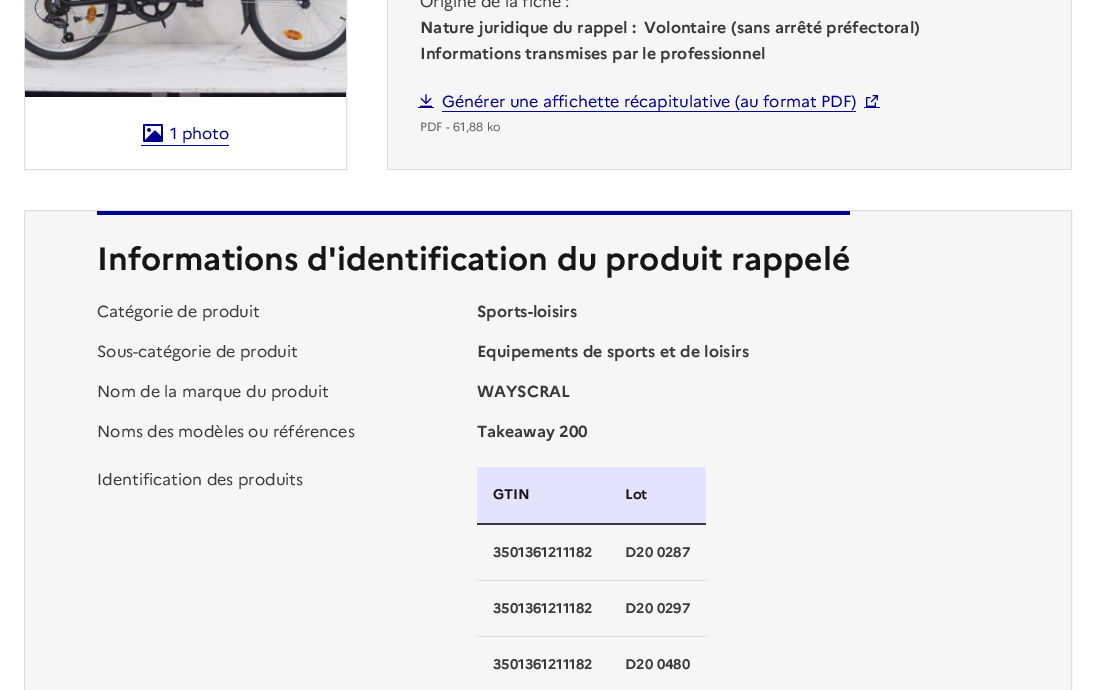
%!PS-Adobe-3.0
%%BoundingBox: 0 0 1096 690
%%LanguageLevel: 3
%%Pages: 1
%%EndComments
%%BeginProlog
/drawimage { 5 dict begin { /h /w /y /x /name } { exch def } forall
  gsave x y translate w h scale
  w h 8 [w 0 0 h 0 0] name (r) file false 3 colorimage grestore end } def
%%EndProlog
%%BeginSetup
<< /PageSize [1096 690] >> setpagedevice
%%EndSetup
%%Page: 1 1
0 690 translate 1 -1 scale
4 setmiterlimit
1 setgray
0 0 1096 690 rectfill
0.965 setgray
388 0 683 169 rectfill
0.867 setgray
1071 0 1 170 rectfill
387 0 1 170 rectfill
387 169 685 1 rectfill
0 0 0.569 setrgbcolor
418 107 16 1 rectfill
442 111 414 1 rectfill
864 107 16 1 rectfill
(images/1.raw) 420 94 12 13 drawimage
(images/2.raw) 866 95 12 12 drawimage
0.867 setgray
24.5 -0.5 322 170 rectstroke
(images/3.raw) 25 0 321 97 drawimage
0 0 0.569 setrgbcolor
141 145 88 1 rectfill
(images/4.raw) 143 124 20 18 drawimage
0.965 setgray
newpath 24.5 210.5 moveto 1071.5 210.5 lineto 1071.5 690.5 lineto 24.5 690.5 lineto closepath gsave fill grestore
0.867 setgray
stroke
0 0 0.569 setrgbcolor
97 211 753 4 rectfill
0.89 0.89 0.992 setrgbcolor
477 467 229 56 rectfill
0.227 setgray
477 523 229 2 rectfill
0.867 setgray
477 580 229 1 rectfill
477 636 229 1 rectfill
/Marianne-Regular [16 0 0 -16 0 0] selectfont
0.227 setgray
420 7 moveto (Origine de la fiche :) show
/Marianne-Bold [16 0 0 -16 0 0] selectfont
420 33 moveto (Nature juridique du rappel :) show
644 33 moveto (Volontaire \(sans arrêté préfectoral\)) show
420 59 moveto (Informations transmises par le professionnel) show
/Marianne-Regular [16 0 0 -16 0 0] selectfont
0 0 0.569 setrgbcolor
442 107 moveto (Générer une affichette récapitulative \(au format PDF\)) show
/Marianne-Regular [12 0 0 -12 0 0] selectfont
0.4 setgray
420 131 moveto (PDF - 61,88 ko) show
/Marianne-Regular [16 0 0 -16 0 0] selectfont
0 0 0.569 setrgbcolor
170 139 moveto (1 photo) show
/Marianne-Bold [32 0 0 -32 0 0] selectfont
0.086 setgray
97 270 moveto (Informations d'identification du produit rappelé) show
/Marianne-Regular [16 0 0 -16 0 0] selectfont
0.227 setgray
97 317 moveto (Catégorie de produit) show
/Marianne-Bold [16 0 0 -16 0 0] selectfont
477 317 moveto (Sports-loisirs) show
/Marianne-Regular [16 0 0 -16 0 0] selectfont
97 357 moveto (Sous-catégorie de produit) show
/Marianne-Bold [16 0 0 -16 0 0] selectfont
477 357 moveto (Equipements de sports et de loisirs) show
/Marianne-Regular [16 0 0 -16 0 0] selectfont
97 397 moveto (Nom de la marque du produit) show
/Marianne-Bold [16 0 0 -16 0 0] selectfont
477 397 moveto (WAYSCRAL) show
/Marianne-Regular [16 0 0 -16 0 0] selectfont
97 437 moveto (Noms des modèles ou références) show
/Marianne-Bold [16 0 0 -16 0 0] selectfont
477 437 moveto (Takeaway 200) show
/Marianne-Regular [16 0 0 -16 0 0] selectfont
97 485 moveto (Identification des produits) show
/Marianne-Bold [14 0 0 -14 0 0] selectfont
0.086 setgray
493 499 moveto (GTIN) show
625 499 moveto (Lot) show
0.227 setgray
493 557 moveto (3501361211182) show
625 557 moveto (D20 0287) show
493 613 moveto (3501361211182) show
625 613 moveto (D20 0297) show
493 669 moveto (3501361211182) show
625 669 moveto (D20 0480) show
showpage
%%EOF
